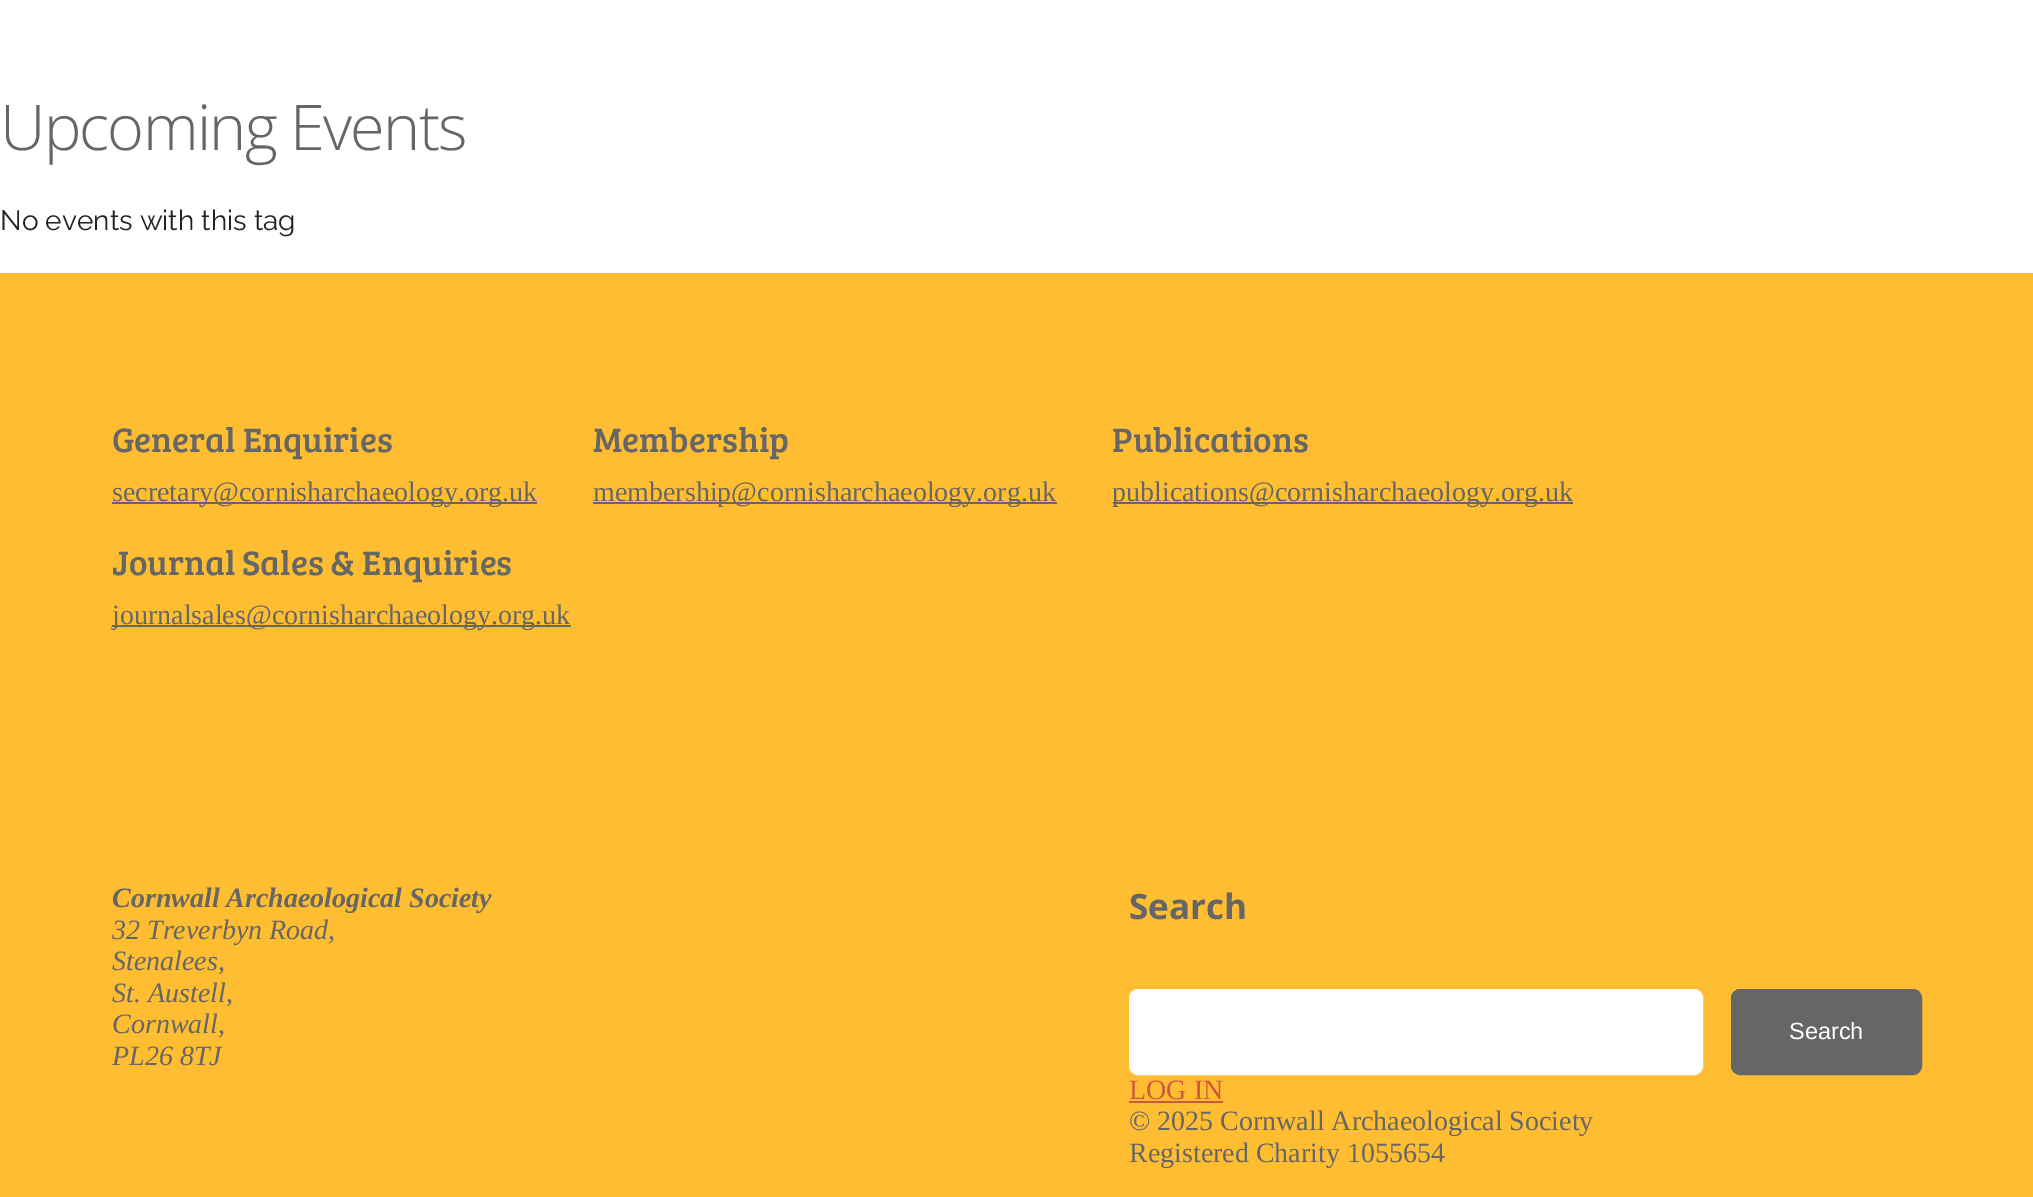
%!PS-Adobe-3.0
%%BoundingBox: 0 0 2033 1197
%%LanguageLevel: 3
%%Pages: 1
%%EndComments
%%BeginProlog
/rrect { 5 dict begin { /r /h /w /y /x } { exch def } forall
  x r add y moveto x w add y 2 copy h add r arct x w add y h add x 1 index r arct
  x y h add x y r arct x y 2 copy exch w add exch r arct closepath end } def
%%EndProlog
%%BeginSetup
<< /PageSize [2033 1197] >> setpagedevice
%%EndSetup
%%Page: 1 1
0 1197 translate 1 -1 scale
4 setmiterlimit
1 setgray
0 0 2033 1197 rectfill
1 0.741 0.192 setrgbcolor
0 273 2033 924 rectfill
0.4 setgray
112 502 425 2 rectfill
593 502 464 2 rectfill
1113 502 460 2 rectfill
112 625 459 2 rectfill
1 setgray
1130 990 572 84 8 rrect gsave fill grestore
2 setlinewidth
stroke
0.4 setgray
1732 990 189 84 8 rrect gsave fill grestore
stroke
0.812 0.345 0.251 setrgbcolor
1129 1101 94 2 rectfill
/OpenSans-Light [63 0 0 -63 0 0] selectfont
0.4 setgray
0 150 moveto -1.75 0 (Upcoming Events) ashow
/Raleway-Regular [28 0 0 -28 0 0] selectfont
0.129 setgray
0 230 moveto (No events with this tag) show
/BreeSerif-Regular [35 0 0 -35 0 0] selectfont
0.4 setgray
112 452 moveto (General Enquiries) show
/LiberationSerif-Regular [28 0 0 -28 0 0] selectfont
112 501 moveto (secretary@cornisharchaeology.org.uk) show
/BreeSerif-Regular [35 0 0 -35 0 0] selectfont
593 452 moveto (Membership) show
/LiberationSerif-Regular [28 0 0 -28 0 0] selectfont
593 501 moveto (membership@cornisharchaeology.org.uk) show
/BreeSerif-Regular [35 0 0 -35 0 0] selectfont
1112 452 moveto (Publications) show
/LiberationSerif-Regular [28 0 0 -28 0 0] selectfont
1112 501 moveto (publications@cornisharchaeology.org.uk) show
/BreeSerif-Regular [35 0 0 -35 0 0] selectfont
112 575 moveto (Journal Sales & Enquiries) show
/LiberationSerif-Regular [28 0 0 -28 0 0] selectfont
112 624 moveto (journalsales@cornisharchaeology.org.uk) show
/LiberationSerif-BoldItalic [28 0 0 -28 0 0] selectfont
112 907 moveto (Cornwall Archaeological Society) show
/LiberationSerif-Italic [28 0 0 -28 0 0] selectfont
112 939 moveto (32 Treverbyn Road,) show
112 970 moveto (Stenalees,) show
112 1002 moveto (St. Austell,) show
112 1033 moveto (Cornwall,) show
112 1065 moveto (PL26 8TJ) show
/OpenSans-Bold [35 0 0 -35 0 0] selectfont
1129 919 moveto (Search) show
/LiberationSans-Regular [23.5 0 0 -23.5 0 0] selectfont
1 setgray
1789 1039 moveto (Search) show
/LiberationSerif-Regular [28 0 0 -28 0 0] selectfont
0.812 0.345 0.251 setrgbcolor
1129 1099 moveto (LOG IN) show
0.4 setgray
1129 1130 moveto (© 2025 Cornwall Archaeological Society) show
1129 1162 moveto (Registered Charity 1055654) show
showpage
%%EOF
